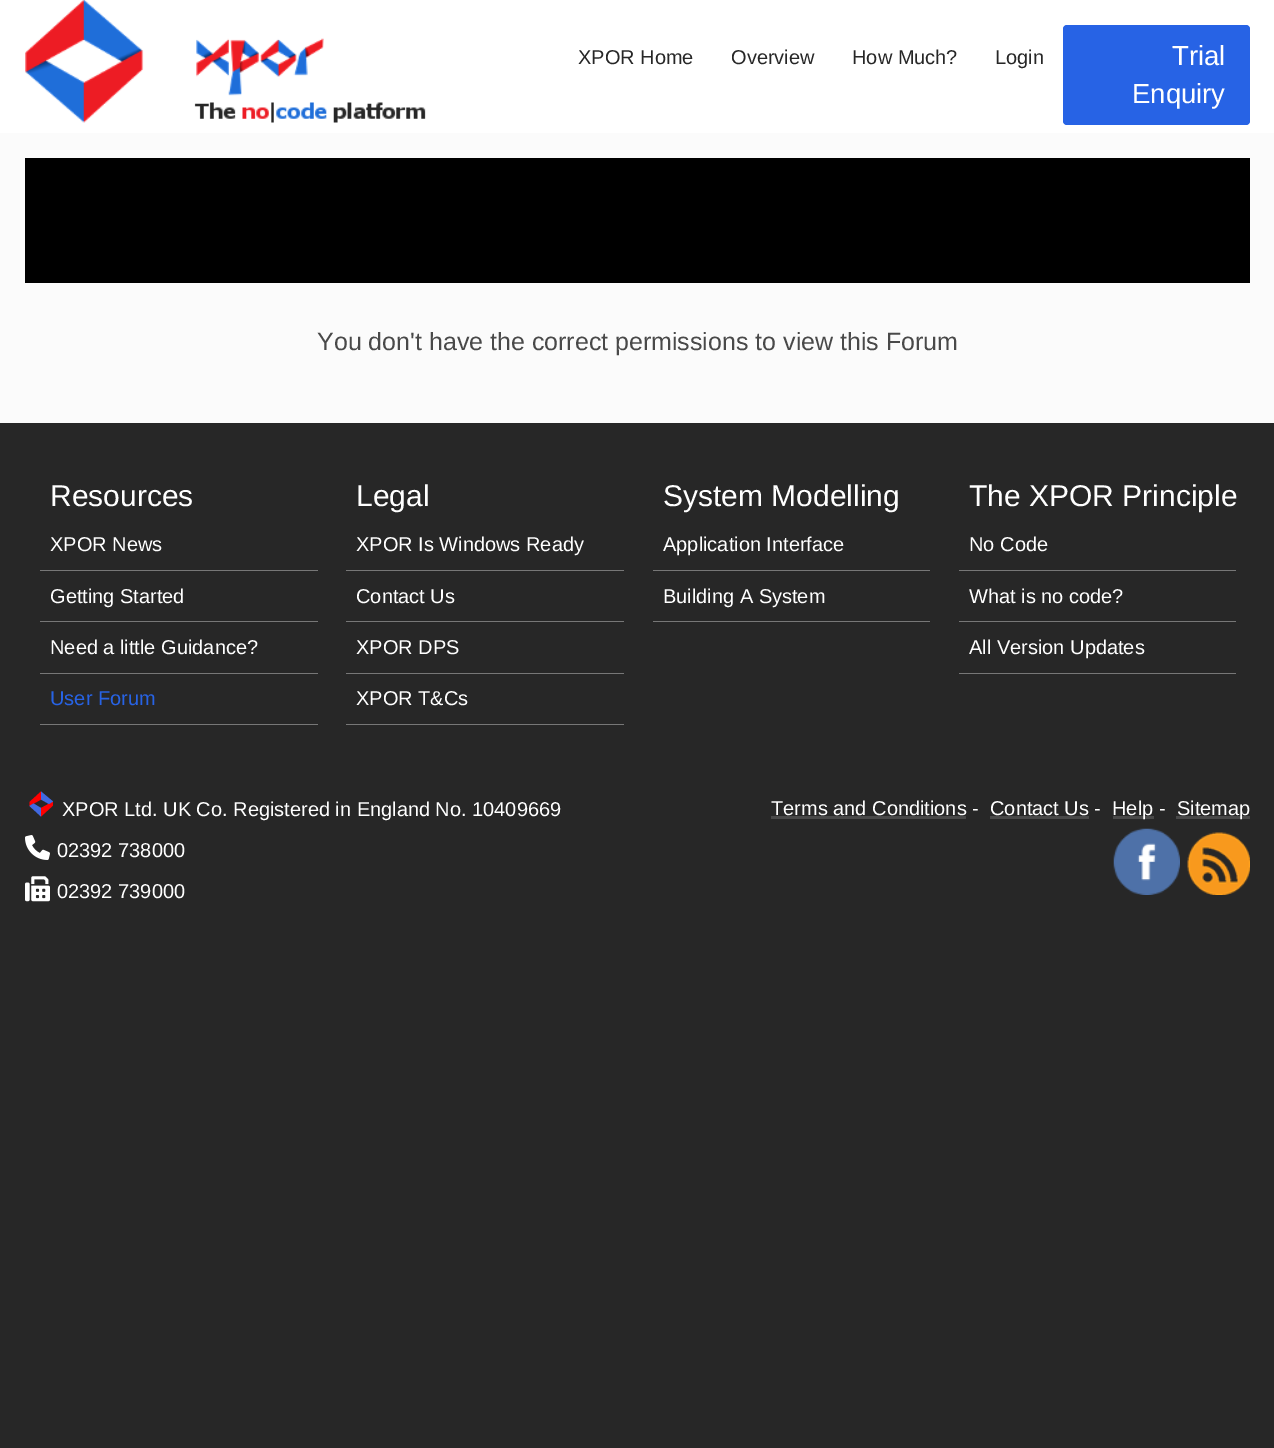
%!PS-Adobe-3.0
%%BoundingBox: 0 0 1274 1448
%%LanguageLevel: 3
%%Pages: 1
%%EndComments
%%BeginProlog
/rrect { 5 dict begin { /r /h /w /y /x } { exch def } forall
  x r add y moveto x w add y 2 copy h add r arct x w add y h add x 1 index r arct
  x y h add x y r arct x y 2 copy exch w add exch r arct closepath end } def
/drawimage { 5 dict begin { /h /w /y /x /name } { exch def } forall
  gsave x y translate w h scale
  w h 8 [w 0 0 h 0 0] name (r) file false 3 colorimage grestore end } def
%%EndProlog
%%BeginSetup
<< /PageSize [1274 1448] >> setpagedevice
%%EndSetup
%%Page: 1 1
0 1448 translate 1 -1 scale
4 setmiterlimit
0.153 setgray
0 0 1274 1448 rectfill
1 setgray
0 0 1274 133 rectfill
(images/1.raw) 25 0 401 123 drawimage
0.153 0.388 0.898 setrgbcolor
1063 25 187 100 4 rrect fill
0.984 setgray
0 133 1274 290 rectfill
0 setgray
25 158 1225 125 rectfill
0.467 setgray
40 570 278 1 rectfill
40 621 278 1 rectfill
40 673 278 1 rectfill
40 724 278 1 rectfill
346 570 278 1 rectfill
346 621 278 1 rectfill
346 673 278 1 rectfill
346 724 278 1 rectfill
653 570 277 1 rectfill
653 621 277 1 rectfill
959 570 277 1 rectfill
959 621 277 1 rectfill
959 673 277 1 rectfill
1 0 0 setrgbcolor
newpath 41 808 moveto 53 801.5 lineto 53 805.5 lineto 41 816.5 lineto closepath 29.5 802 moveto 41 791.5 lineto 41 799.5 lineto 29.5 806 lineto closepath fill
0.255 0.412 0.882 setrgbcolor
newpath 29.5 806 moveto 33.5 803.5 lineto 41 808 lineto 41 816.5 lineto closepath 49 804 moveto 41 799.5 lineto 41 791.5 lineto 53 801.5 lineto closepath fill
(images/2.raw) 25 835 25 25 drawimage
(images/3.raw) 25 876 25 26 drawimage
0.286 setgray
771 816 195 3 rectfill
990 816 99 3 rectfill
1113 816 41 3 rectfill
1176 816 74 3 rectfill
(images/4.raw) 1113 828 67 67 drawimage
(images/5.raw) 1187 832 63 63 drawimage
/LiberationSans-Regular [20 0 0 -20 0 0] selectfont
0.153 setgray
578 64 moveto (XPOR Home) show
731 64 moveto (Overview) show
852 64 moveto (How Much?) show
995 64 moveto (Login) show
/LiberationSans-Regular [27.5 0 0 -27.5 0 0] selectfont
1 setgray
1172 65 moveto (Trial) show
1132 103 moveto (Enquiry) show
/LiberationSans-Regular [25 0 0 -25 0 0] selectfont
0.286 setgray
317 350 moveto (You don't have the correct permissions to view this Forum) show
/LiberationSans-Regular [30 0 0 -30 0 0] selectfont
1 setgray
50 506 moveto (Resources) show
/LiberationSans-Regular [20 0 0 -20 0 0] selectfont
50 551 moveto (XPOR News) show
50 603 moveto (Getting Started) show
50 654 moveto (Need a little Guidance?) show
0.153 0.388 0.898 setrgbcolor
50 705 moveto (User Forum) show
/LiberationSans-Regular [30 0 0 -30 0 0] selectfont
1 setgray
356 506 moveto (Legal) show
/LiberationSans-Regular [20 0 0 -20 0 0] selectfont
356 551 moveto (XPOR Is Windows Ready) show
356 603 moveto (Contact Us) show
356 654 moveto (XPOR DPS) show
356 705 moveto (XPOR T&Cs) show
/LiberationSans-Regular [30 0 0 -30 0 0] selectfont
663 506 moveto (System Modelling) show
/LiberationSans-Regular [20 0 0 -20 0 0] selectfont
663 551 moveto (Application Interface) show
663 603 moveto (Building A System) show
/LiberationSans-Regular [30 0 0 -30 0 0] selectfont
969 506 moveto (The XPOR Principle) show
/LiberationSans-Regular [20 0 0 -20 0 0] selectfont
969 551 moveto (No Code) show
969 603 moveto (What is no code?) show
969 654 moveto (All Version Updates) show
62 816 moveto (XPOR Ltd. UK Co. Registered in England No. 10409669) show
57 857 moveto (02392 738000) show
57 898 moveto (02392 739000) show
771 815 moveto (Terms and Conditions -) show
990 815 moveto (Contact Us -) show
1112 815 moveto (Help -) show
1177 815 moveto (Sitemap) show
showpage
%%EOF
